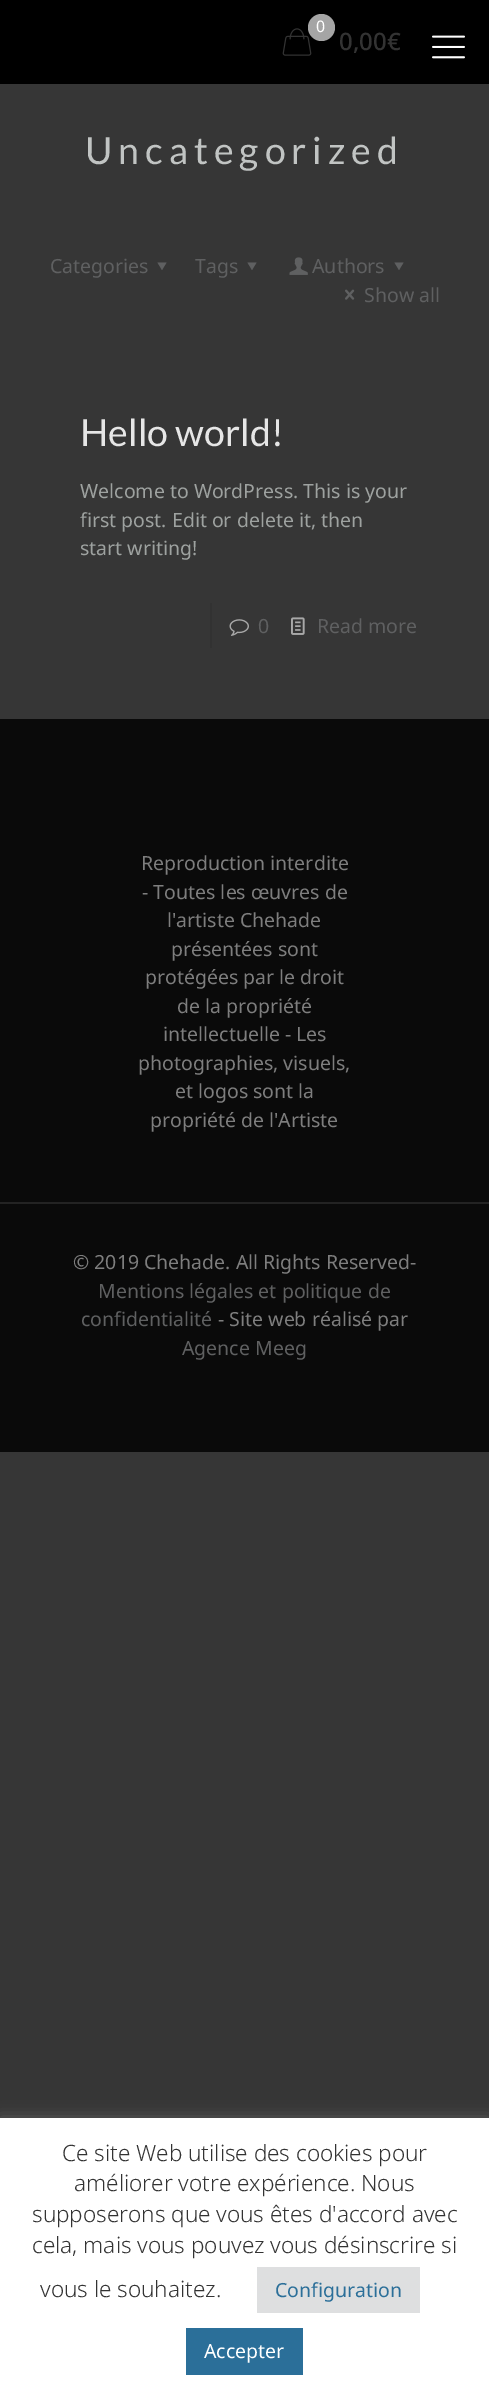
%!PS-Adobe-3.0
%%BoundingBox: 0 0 489 2399
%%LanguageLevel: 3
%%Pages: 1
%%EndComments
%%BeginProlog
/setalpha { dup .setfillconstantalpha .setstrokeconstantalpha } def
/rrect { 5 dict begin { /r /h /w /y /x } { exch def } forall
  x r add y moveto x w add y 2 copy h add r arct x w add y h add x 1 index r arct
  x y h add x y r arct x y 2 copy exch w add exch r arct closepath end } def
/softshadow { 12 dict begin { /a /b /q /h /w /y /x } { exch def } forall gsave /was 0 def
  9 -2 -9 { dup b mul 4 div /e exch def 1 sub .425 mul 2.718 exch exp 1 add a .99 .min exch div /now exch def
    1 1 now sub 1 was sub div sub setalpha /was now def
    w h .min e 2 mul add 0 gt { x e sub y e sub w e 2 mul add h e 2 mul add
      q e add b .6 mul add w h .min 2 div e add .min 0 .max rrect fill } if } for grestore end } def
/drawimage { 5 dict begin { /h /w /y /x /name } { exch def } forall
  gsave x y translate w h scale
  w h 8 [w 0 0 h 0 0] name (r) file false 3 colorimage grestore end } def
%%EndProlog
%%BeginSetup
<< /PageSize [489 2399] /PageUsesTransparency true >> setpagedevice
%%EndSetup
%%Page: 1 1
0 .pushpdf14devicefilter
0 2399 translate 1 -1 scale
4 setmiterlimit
0.212 setgray
0 0 489 2399 rectfill
0 setgray
0 0 489 84 rectfill
(images/1.raw) 282 28 30 28 drawimage
0.647 setgray
newpath 321.5 27.5 13.5 0 360 arc closepath fill
(images/2.raw) 432 35 33 24 drawimage
0.373 0.376 0.38 setrgbcolor
newpath 166.5 262.5 moveto 162 270 lineto 157.5 262.5 lineto closepath fill
newpath 256.5 262.5 moveto 252 270 lineto 247.5 262.5 lineto closepath fill
(images/3.raw) 289 257 19 18 drawimage
newpath 403.5 262.5 moveto 399 270 lineto 394.5 262.5 lineto closepath fill
(images/4.raw) 345 289 10 11 drawimage
0.196 setgray
210 603 2 45 rectfill
(images/5.raw) 229 619 20 17 drawimage
(images/6.raw) 291 617 14 18 drawimage
0.039 setgray
0 719 489 733 rectfill
0.137 setgray
0 1202 489 2 rectfill
0.675 0.671 0.671 setrgbcolor
0 2117 489 282 0 7.5 0.3 softshadow
1 setgray
0 2118 489 281 rectfill
0.871 0.875 0.878 setrgbcolor
257 2267 163 46 rectfill
0.169 0.435 0.6 setrgbcolor
186 2328 117 47 rectfill
/NotoSans-Regular [16 0 0 -16 0 0] selectfont
1 setgray
316 32 moveto (0) show
/NotoSans-Medium [24 0 0 -24 0 0] selectfont
0.2 setgray
339 50 moveto (0,00€) show
/Lato-Regular [37.5 0 0 -37.5 0 0] selectfont
0.757 0.769 0.765 setrgbcolor
85 164 moveto 6 0 (Uncategorized) ashow
/NotoSans-Regular [19.5 0 0 -19.5 0 0] selectfont
0.373 0.376 0.38 setrgbcolor
50 273 moveto (Categories) show
195 273 moveto (Tags) show
312 273 moveto (Authors) show
364 302 moveto (Show all) show
/Lato-Regular [37.5 0 0 -37.5 0 0] selectfont
0.902 setgray
80 446 moveto (Hello world!) show
/NotoSans-Regular [19.5 0 0 -19.5 0 0] selectfont
0.62 0.635 0.627 setrgbcolor
80 498 moveto (Welcome to WordPress. This is your) show
80 527 moveto (first post. Edit or delete it, then) show
80 555 moveto (start writing!) show
0.373 0.376 0.38 setrgbcolor
258 633 moveto (0) show
317 633 moveto (Read more) show
0.494 setgray
141 870 moveto (Reproduction interdite) show
142 899 moveto (- Toutes les œuvres de) show
167 927 moveto (l'artiste Chehade) show
171 956 moveto (présentées sont) show
145 984 moveto (protégées par le droit) show
177 1013 moveto (de la propriété) show
163 1041 moveto (intellectuelle - Les) show
138 1070 moveto (photographies, visuels,) show
175 1098 moveto (et logos sont la) show
150 1127 moveto (propriété de l'Artiste) show
73 1269 moveto (© 2019 Chehade. All Rights Reserved-) show
0.373 0.376 0.38 setrgbcolor
98 1298 moveto (Mentions légales et politique de) show
81 1326 moveto (confidentialité) show
0.494 setgray
218 1326 moveto (- Site web réalisé par) show
0.373 0.376 0.38 setrgbcolor
182 1355 moveto (Agence Meeg) show
/NotoSans-Light [22.5 0 0 -22.5 0 0] selectfont
0.2 setgray
62 2161 moveto (Ce site Web utilise des cookies pour) show
74 2191 moveto (améliorer votre expérience. Nous) show
32 2222 moveto (supposerons que vous êtes d'accord avec) show
32 2253 moveto (cela, mais vous pouvez vous désinscrire si) show
40 2297 moveto (vous le souhaitez.) show
/NotoSans-Regular [19.5 0 0 -19.5 0 0] selectfont
0.169 0.435 0.6 setrgbcolor
275 2297 moveto (Configuration) show
1 setgray
204 2358 moveto (Accepter) show
.poppdf14devicefilter showpage
%%EOF
